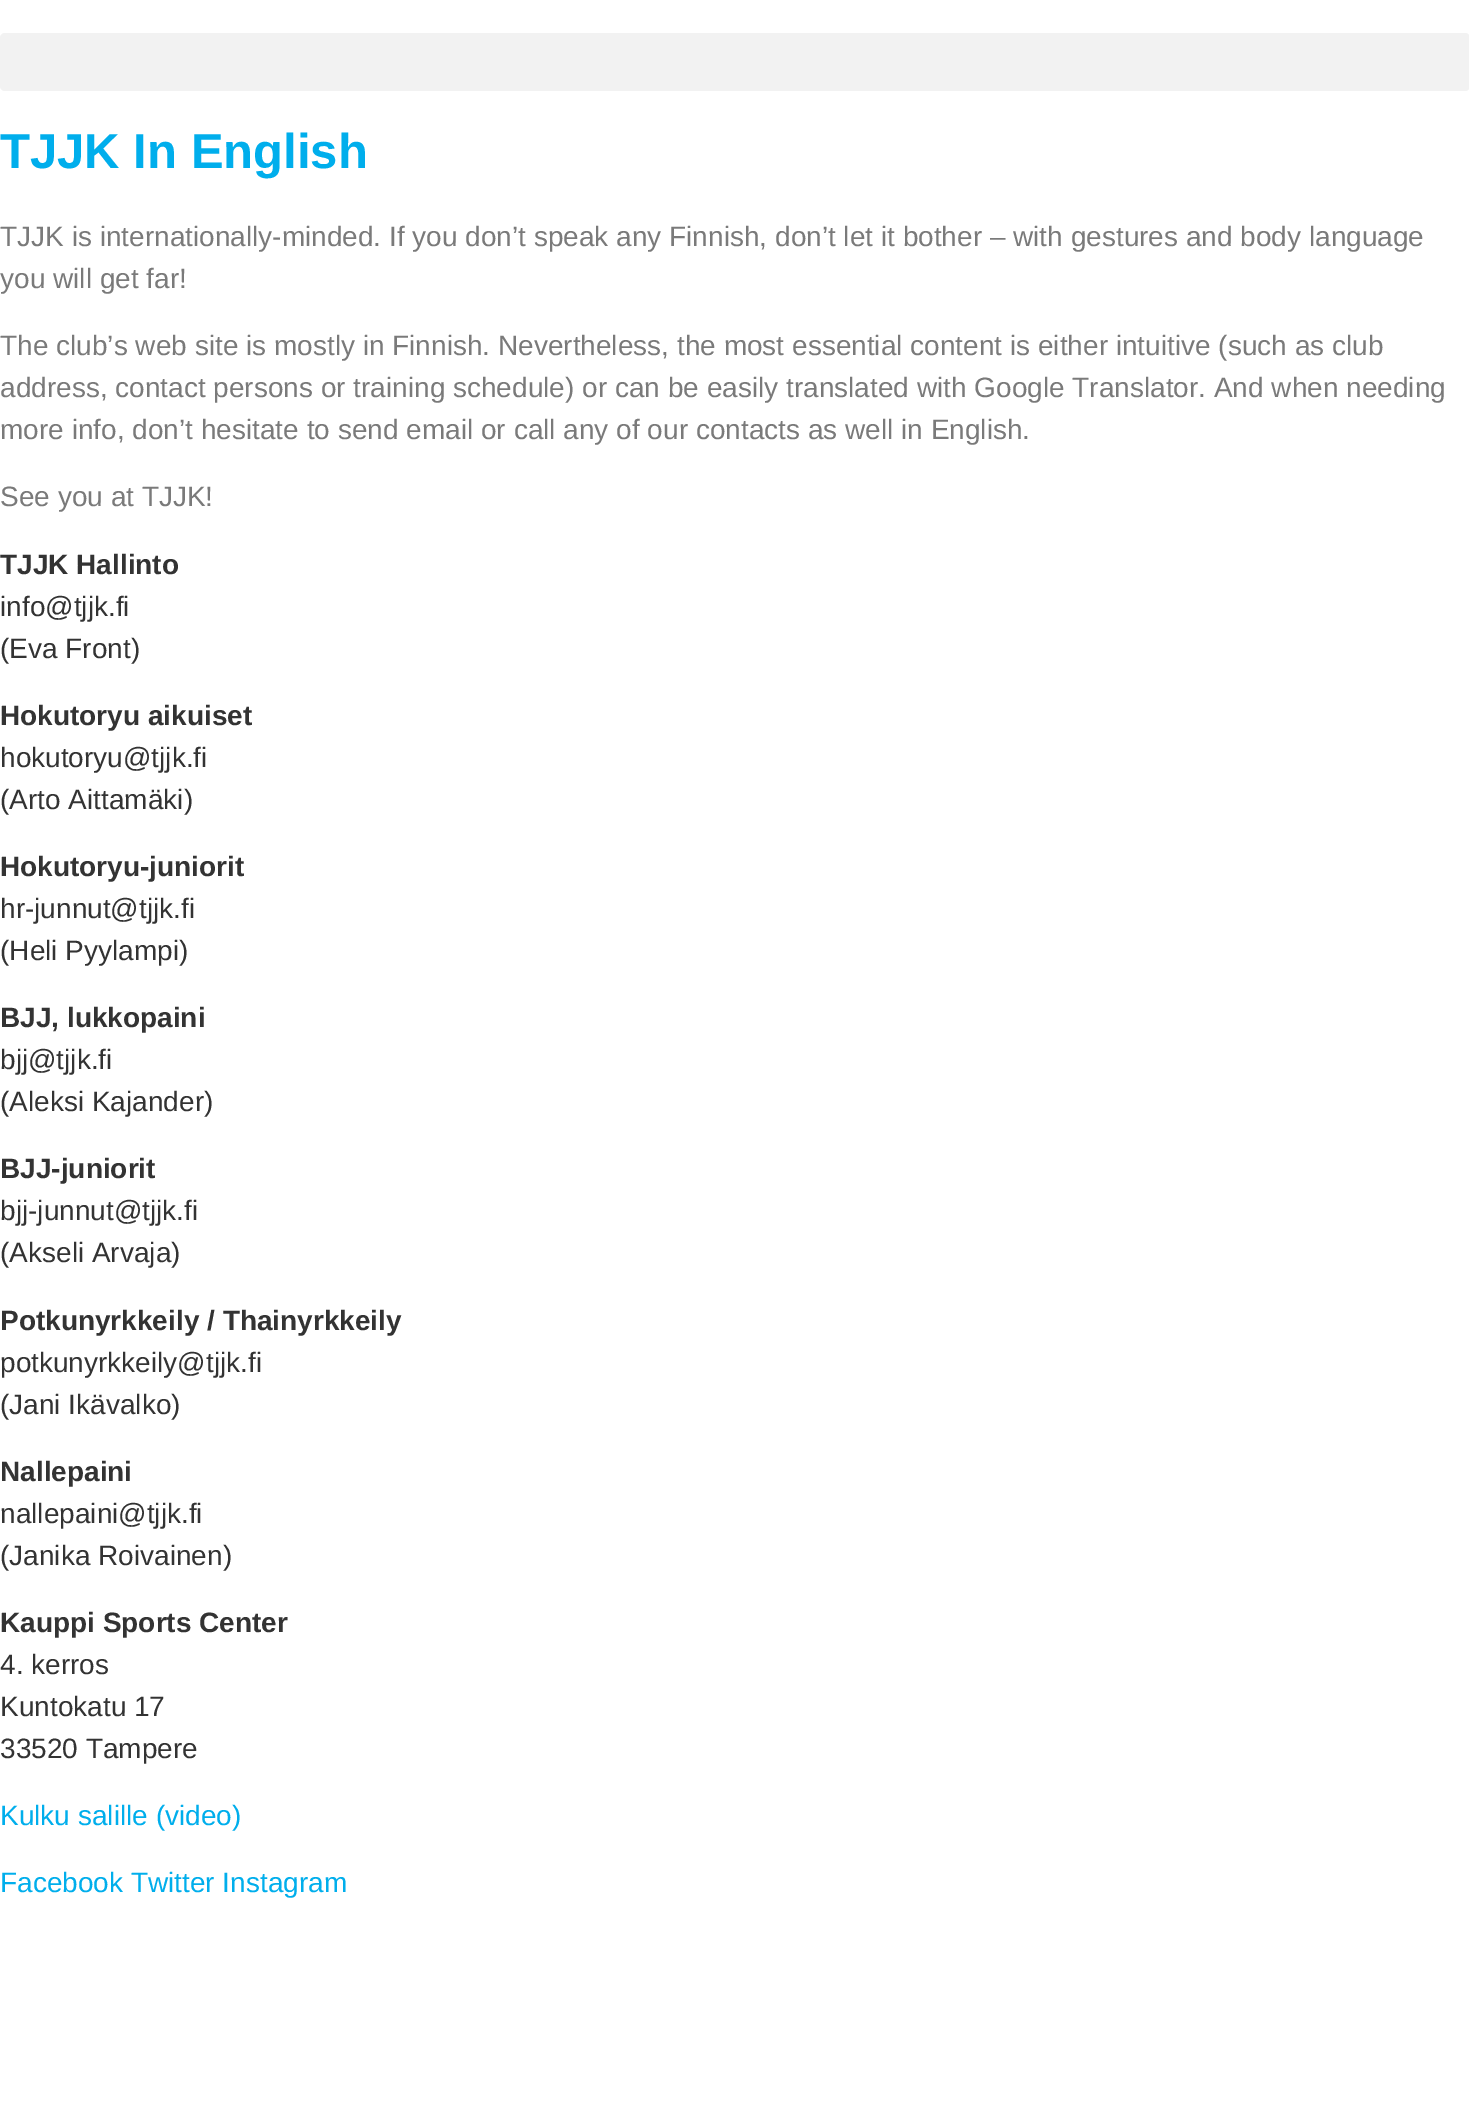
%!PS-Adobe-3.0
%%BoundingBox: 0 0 1469 2103
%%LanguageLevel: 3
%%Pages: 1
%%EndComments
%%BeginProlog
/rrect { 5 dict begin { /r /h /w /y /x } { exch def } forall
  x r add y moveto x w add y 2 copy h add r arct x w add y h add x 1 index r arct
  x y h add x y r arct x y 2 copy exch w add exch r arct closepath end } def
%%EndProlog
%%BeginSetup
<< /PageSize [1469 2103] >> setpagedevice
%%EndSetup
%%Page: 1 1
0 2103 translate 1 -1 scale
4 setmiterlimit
1 setgray
0 0 1469 2103 rectfill
0.949 setgray
0 33 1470 58 5 rrect fill
/LiberationSans-Bold [49 0 0 -49 0 0] selectfont
0 0.682 0.925 setrgbcolor
0 168 moveto (TJJK In English) show
/LiberationSans-Regular [28 0 0 -28 0 0] selectfont
0.478 setgray
0 246 moveto (TJJK is internationally-minded. If you don’t speak any Finnish, don’t let it bother – with gestures and body language) show
0 288 moveto (you will get far!) show
0 355 moveto (The club’s web site is mostly in Finnish. Nevertheless, the most essential content is either intuitive \(such as club) show
0 397 moveto (address, contact persons or training schedule\) or can be easily translated with Google Translator. And when needing) show
0 439 moveto (more info, don’t hesitate to send email or call any of our contacts as well in English.) show
0 506 moveto (See you at TJJK!) show
/LiberationSans-Bold [28 0 0 -28 0 0] selectfont
0.2 setgray
0 574 moveto (TJJK Hallinto) show
/LiberationSans-Regular [28 0 0 -28 0 0] selectfont
0 616 moveto (info@tjjk.fi) show
0 658 moveto (\(Eva Front\)) show
/LiberationSans-Bold [28 0 0 -28 0 0] selectfont
0 725 moveto (Hokutoryu aikuiset) show
/LiberationSans-Regular [28 0 0 -28 0 0] selectfont
0 767 moveto (hokutoryu@tjjk.fi) show
0 809 moveto (\(Arto Aittamäki\)) show
/LiberationSans-Bold [28 0 0 -28 0 0] selectfont
0 876 moveto (Hokutoryu-juniorit) show
/LiberationSans-Regular [28 0 0 -28 0 0] selectfont
0 918 moveto (hr-junnut@tjjk.fi) show
0 960 moveto (\(Heli Pyylampi\)) show
/LiberationSans-Bold [28 0 0 -28 0 0] selectfont
0 1027 moveto (BJJ, lukkopaini) show
/LiberationSans-Regular [28 0 0 -28 0 0] selectfont
0 1069 moveto (bjj@tjjk.fi) show
0 1111 moveto (\(Aleksi Kajander\)) show
/LiberationSans-Bold [28 0 0 -28 0 0] selectfont
0 1178 moveto (BJJ-juniorit) show
/LiberationSans-Regular [28 0 0 -28 0 0] selectfont
0 1220 moveto (bjj-junnut@tjjk.fi) show
0 1262 moveto (\(Akseli Arvaja\)) show
/LiberationSans-Bold [28 0 0 -28 0 0] selectfont
0 1330 moveto (Potkunyrkkeily / Thainyrkkeily) show
/LiberationSans-Regular [28 0 0 -28 0 0] selectfont
0 1372 moveto (potkunyrkkeily@tjjk.fi) show
0 1414 moveto (\(Jani Ikävalko\)) show
/LiberationSans-Bold [28 0 0 -28 0 0] selectfont
0 1481 moveto (Nallepaini) show
/LiberationSans-Regular [28 0 0 -28 0 0] selectfont
0 1523 moveto (nallepaini@tjjk.fi) show
0 1565 moveto (\(Janika Roivainen\)) show
/LiberationSans-Bold [28 0 0 -28 0 0] selectfont
0 1632 moveto (Kauppi Sports Center) show
/LiberationSans-Regular [28 0 0 -28 0 0] selectfont
0 1674 moveto (4. kerros) show
0 1716 moveto (Kuntokatu 17) show
0 1758 moveto (33520 Tampere) show
0 0.682 0.925 setrgbcolor
0 1825 moveto (Kulku salille \(video\)) show
0 1892 moveto (Facebook Twitter Instagram) show
showpage
%%EOF
